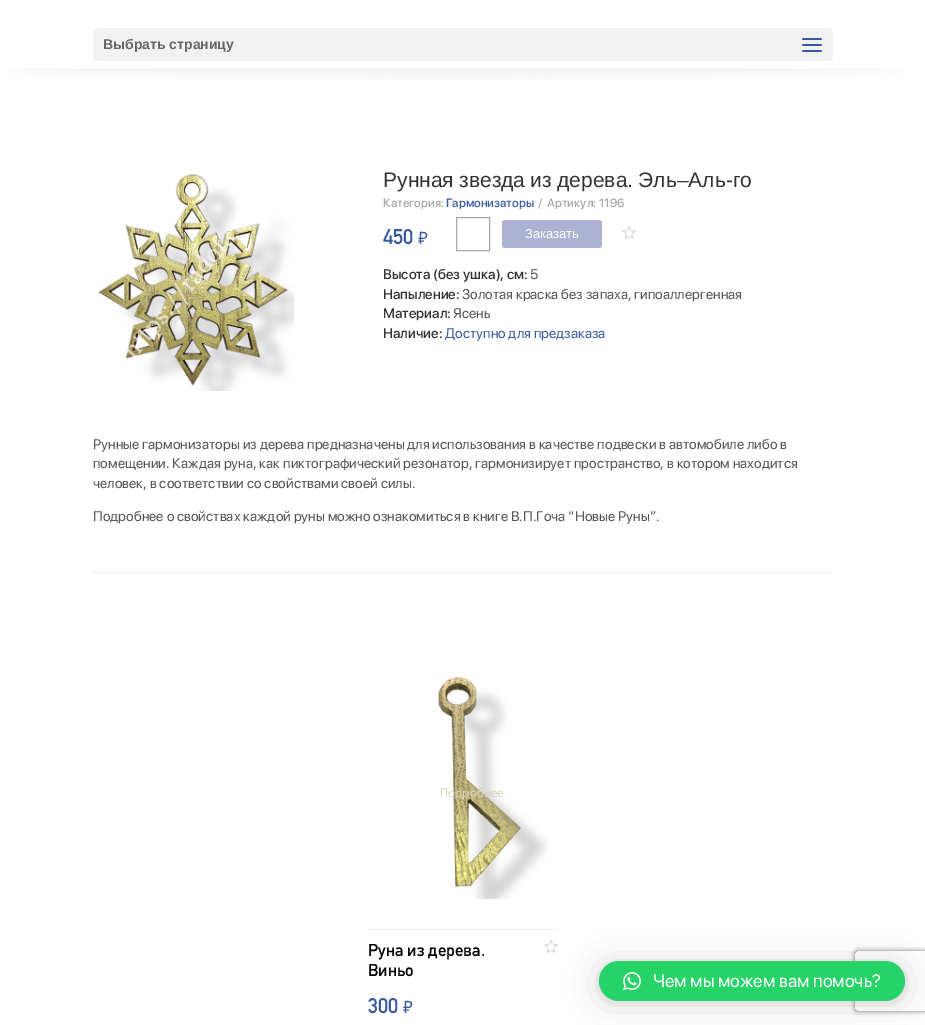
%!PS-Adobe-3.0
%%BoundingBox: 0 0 925 1025
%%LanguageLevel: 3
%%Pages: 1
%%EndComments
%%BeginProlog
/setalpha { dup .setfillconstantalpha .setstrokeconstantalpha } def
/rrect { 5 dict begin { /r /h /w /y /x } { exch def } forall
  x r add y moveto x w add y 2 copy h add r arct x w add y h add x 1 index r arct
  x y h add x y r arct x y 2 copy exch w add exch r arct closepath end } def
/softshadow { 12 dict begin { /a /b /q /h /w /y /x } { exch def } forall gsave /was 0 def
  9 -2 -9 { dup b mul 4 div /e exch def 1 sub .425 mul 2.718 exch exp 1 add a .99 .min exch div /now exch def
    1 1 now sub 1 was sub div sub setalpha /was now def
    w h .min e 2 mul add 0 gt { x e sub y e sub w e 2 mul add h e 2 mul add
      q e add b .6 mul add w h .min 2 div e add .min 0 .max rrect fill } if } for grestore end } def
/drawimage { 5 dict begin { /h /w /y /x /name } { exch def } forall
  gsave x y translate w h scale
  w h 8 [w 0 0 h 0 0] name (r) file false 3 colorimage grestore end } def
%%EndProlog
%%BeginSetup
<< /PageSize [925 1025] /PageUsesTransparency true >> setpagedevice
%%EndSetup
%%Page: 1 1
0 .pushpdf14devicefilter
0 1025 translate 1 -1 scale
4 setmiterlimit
1 setgray
0 0 925 1025 rectfill
0.949 setgray
93 28 740 33 5 rrect fill
(images/1.raw) 802 38 20 14 drawimage
(images/2.raw) 9 69 892 11 drawimage
(images/3.raw) 98 173 196 218 drawimage
0.655 setgray
456.5 217.5 33 33 rectstroke
0.678 0.698 0.827 setrgbcolor
502 220 100 28 3 rrect fill
(images/4.raw) 622 226 14 13 drawimage
0.925 setgray
93 572 740 1 rectfill
(images/5.raw) 438 677 110 222 drawimage
368 929 190 1 rectfill
(images/4.raw) 544 940 14 13 drawimage
gsave
newpath 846 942 moveto 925 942 lineto 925 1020 lineto 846 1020 lineto closepath 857 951 moveto 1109 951 lineto 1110 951 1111 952 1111 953 curveto 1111 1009 lineto 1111 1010 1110 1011 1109 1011 curveto 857 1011 lineto 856 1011 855 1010 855 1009 curveto 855 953 lineto 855 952 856 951 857 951 curveto closepath eoclip newpath
0.502 setgray
855 951 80 60 2 2.5 1 softshadow
grestore
0 setgray
599 963 306 40 20 16 0.16 softshadow
599 962 306 40 20 3 0.06 softshadow
0.145 0.827 0.4 setrgbcolor
599 961 306 40 20 rrect fill
(images/6.raw) 623 972 18 19 drawimage
/LiberationSans-Bold [14 0 0 -14 0 0] selectfont
0.4 setgray
103 49 moveto (Выбрать страницу) show
/LiberationSans-Regular [21 0 0 -21 0 0] selectfont
0.2 setgray
383 187 moveto -0.5 0 32 (Рунная звезда из дерева. Эль–Аль-го) widthshow
/SFProDisplay-Medium [12 0 0 -12 0 0] selectfont
0.655 setgray
383 207 moveto (Категория:) show
0.22 0.353 0.627 setrgbcolor
446 207 moveto (Гармонизаторы) show
0.655 setgray
538 207 moveto (/) show
547 207 moveto (Артикул: 1196) show
/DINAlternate-Bold [21 0 0 -21 0 0] selectfont
0.22 0.353 0.627 setrgbcolor
383 244 moveto (450) show
/NotoSans-Regular [17 0 0 -17 0 0] selectfont
418 244 moveto (₽) show
/LiberationSans-Regular [13 0 0 -13 0 0] selectfont
1 setgray
525 238 moveto (Заказать) show
/SFProDisplay-Medium [14 0 0 -14 0 0] selectfont
0.2 setgray
383 279 moveto (Высота \(без ушка\), см:) show
/SFProDisplay-Regular [14 0 0 -14 0 0] selectfont
0.333 setgray
530 279 moveto (5) show
/SFProDisplay-Medium [14 0 0 -14 0 0] selectfont
0.2 setgray
383 299 moveto (Напыление:) show
/SFProDisplay-Regular [14 0 0 -14 0 0] selectfont
0.333 setgray
462 299 moveto (Золотая краска без запаха, гипоаллергенная) show
/SFProDisplay-Medium [14 0 0 -14 0 0] selectfont
0.2 setgray
383 318 moveto (Материал:) show
/SFProDisplay-Regular [14 0 0 -14 0 0] selectfont
0.333 setgray
453 318 moveto (Ясень) show
/SFProDisplay-Medium [14 0 0 -14 0 0] selectfont
0.2 setgray
383 338 moveto (Наличие:) show
/SFProDisplay-Regular [14 0 0 -14 0 0] selectfont
0.22 0.353 0.627 setrgbcolor
445 338 moveto (Доступно для предзаказа) show
0.333 setgray
93 449 moveto (Рунные гармонизаторы из дерева предназначены для использования в качестве подвески в автомобиле либо в) show
93 468 moveto (помещении. Каждая руна, как пиктографический резонатор, гармонизирует пространство, в котором находится) show
93 488 moveto (человек, в соответствии со свойствами своей силы.) show
93 521 moveto (Подробнее о свойствах каждой руны можно ознакомиться в книге В.П.Гоча “Новые Руны”.) show
/Myriad-Regular [13 0 0 -13 0 0] selectfont
0.843 0.824 0.733 setrgbcolor
440 797 moveto (Подробнее) show
/DINAlternate-Bold [17 0 0 -17 0 0] selectfont
0 setgray
368 956 moveto (Руна из дерева.) show
368 976 moveto (Виньо) show
/DINAlternate-Bold [21 0 0 -21 0 0] selectfont
0.22 0.353 0.627 setrgbcolor
368 1013 moveto (300) show
/NotoSans-Regular [17 0 0 -17 0 0] selectfont
403 1013 moveto (₽) show
/SFProDisplay-Regular [18 0 0 -18 0 0] selectfont
1 setgray
653 987 moveto (Чем мы можем вам помочь?) show
.poppdf14devicefilter showpage
%%EOF
